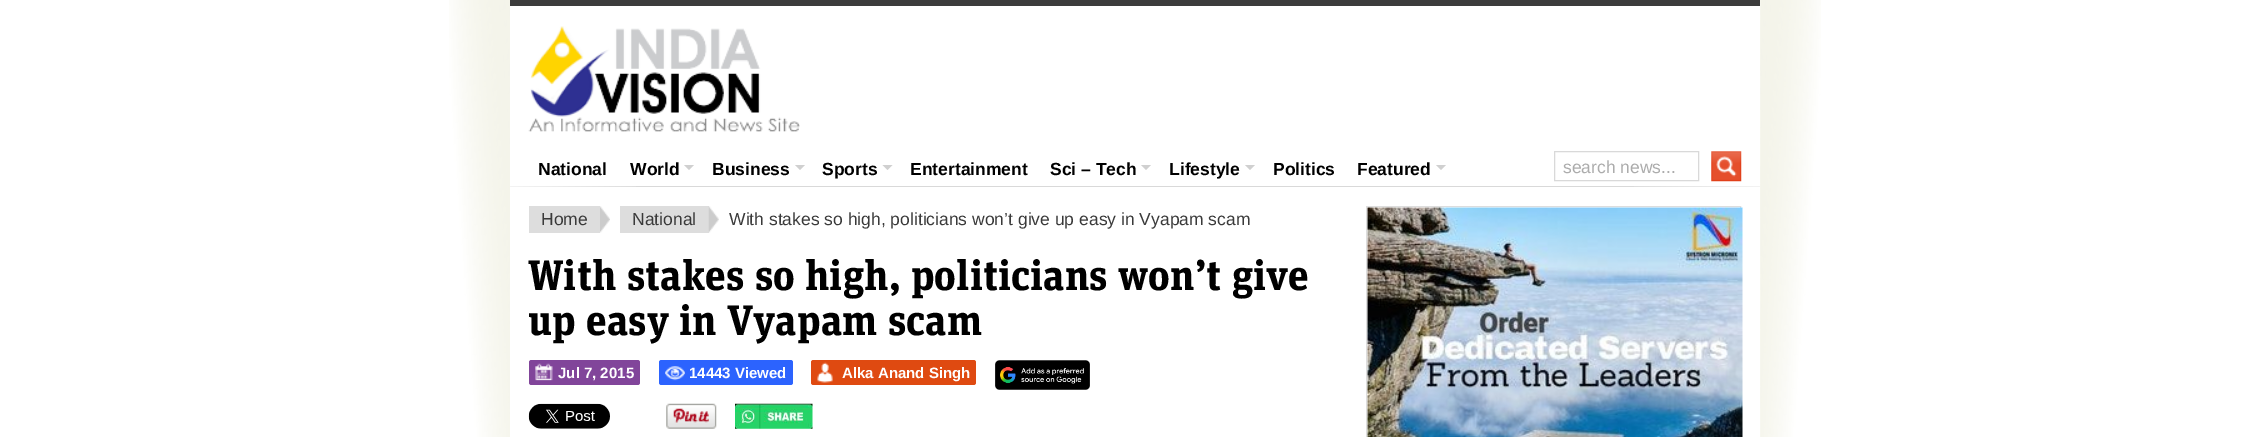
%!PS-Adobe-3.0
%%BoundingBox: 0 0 2268 437
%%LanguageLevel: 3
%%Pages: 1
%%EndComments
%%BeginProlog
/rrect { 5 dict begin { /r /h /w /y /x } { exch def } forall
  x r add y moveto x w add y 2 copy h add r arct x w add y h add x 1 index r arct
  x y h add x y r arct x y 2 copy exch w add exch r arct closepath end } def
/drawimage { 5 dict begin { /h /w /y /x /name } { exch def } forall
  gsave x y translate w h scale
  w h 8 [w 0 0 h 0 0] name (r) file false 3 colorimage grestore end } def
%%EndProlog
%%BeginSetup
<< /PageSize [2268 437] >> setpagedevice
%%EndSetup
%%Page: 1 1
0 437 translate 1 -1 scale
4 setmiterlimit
1 setgray
0 0 2268 437 rectfill
(images/1.raw) 449 0 61 437 drawimage
0.235 setgray
510 0 1250 6 rectfill
(images/2.raw) 1760 0 61 437 drawimage
(images/3.raw) 528 26 272 106 drawimage
0.816 setgray
newpath 684 165 moveto 694 165 lineto 689 170 lineto closepath fill
newpath 795 165 moveto 805 165 lineto 800 170 lineto closepath fill
newpath 882.5 165 moveto 892.5 165 lineto 887.5 170 lineto closepath fill
newpath 1141 165 moveto 1151 165 lineto 1146 170 lineto closepath fill
newpath 1245 165 moveto 1255 165 lineto 1250 170 lineto closepath fill
newpath 1436 165 moveto 1446 165 lineto 1441 170 lineto closepath fill
0.851 setgray
1554.5 151.5 144 29 rectstroke
(images/4.raw) 1711 151 31 31 drawimage
510 186 1250 1 rectfill
(images/5.raw) 510 186 126 1 drawimage
(images/6.raw) 1634 186 126 1 drawimage
0.867 setgray
529 206 71 27 rectfill
(images/7.raw) 600 206 10 27 drawimage
620 206 89 27 rectfill
(images/8.raw) 708 206 11 27 drawimage
0.506 0.271 0.604 setrgbcolor
529 360 111 25 2.5 rrect fill
(images/9.raw) 535 363 18 18 drawimage
0.173 0.388 0.996 setrgbcolor
659 360 134 25 2.5 rrect fill
(images/10.raw) 665 366 20 15 drawimage
0.875 0.29 0.067 setrgbcolor
811 360 165 25 2.5 rrect fill
(images/11.raw) 817 362 16 21 drawimage
(images/12.raw) 995 360 95 30 drawimage
(images/13.raw) 528 403 82 26 drawimage
(images/14.raw) 666 403 51 26 drawimage
(images/15.raw) 735 403 78 26 drawimage
0.867 setgray
1366.5 206.5 374 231 rectstroke
(images/16.raw) 1367 207 376 230 drawimage
/LiberationSans-Bold [17.5 0 0 -17.5 0 0] selectfont
0 setgray
538 175 moveto (National) show
630 175 moveto (World) show
712 175 moveto (Business) show
822 175 moveto (Sports) show
910 175 moveto (Entertainment) show
1050 175 moveto (Sci – Tech) show
1169 175 moveto (Lifestyle) show
1273 175 moveto (Politics) show
1357 175 moveto (Featured) show
/LiberationSans-Regular [17.5 0 0 -17.5 0 0] selectfont
0.675 setgray
1563 173 moveto (search news...) show
0.227 setgray
541 225 moveto (Home) show
632 225 moveto (National) show
729 225 moveto (With stakes so high, politicians won’t give up easy in Vyapam scam) show
/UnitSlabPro-Bold [42.5 0 0 -42.5 0 0] selectfont
0 setgray
528 290 moveto (With stakes so high, politicians won’t give) show
528 335 moveto (up easy in Vyapam scam) show
/LiberationSans-Bold [15 0 0 -15 0 0] selectfont
1 setgray
558 378 moveto (Jul 7, 2015) show
689 378 moveto (14443 Viewed) show
842 378 moveto (Alka Anand Singh) show
showpage
%%EOF
